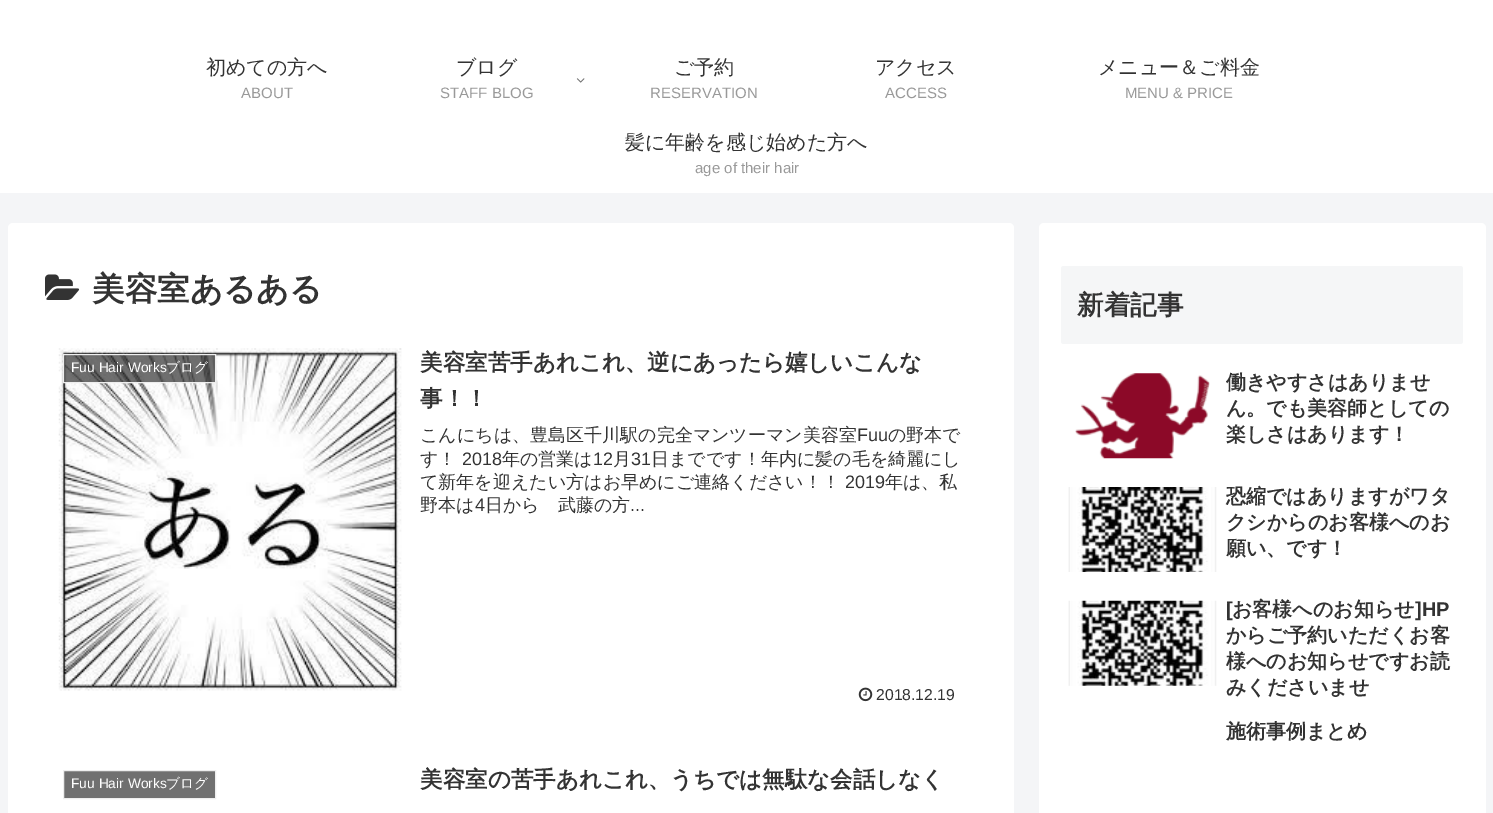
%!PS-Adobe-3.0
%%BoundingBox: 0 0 1493 813
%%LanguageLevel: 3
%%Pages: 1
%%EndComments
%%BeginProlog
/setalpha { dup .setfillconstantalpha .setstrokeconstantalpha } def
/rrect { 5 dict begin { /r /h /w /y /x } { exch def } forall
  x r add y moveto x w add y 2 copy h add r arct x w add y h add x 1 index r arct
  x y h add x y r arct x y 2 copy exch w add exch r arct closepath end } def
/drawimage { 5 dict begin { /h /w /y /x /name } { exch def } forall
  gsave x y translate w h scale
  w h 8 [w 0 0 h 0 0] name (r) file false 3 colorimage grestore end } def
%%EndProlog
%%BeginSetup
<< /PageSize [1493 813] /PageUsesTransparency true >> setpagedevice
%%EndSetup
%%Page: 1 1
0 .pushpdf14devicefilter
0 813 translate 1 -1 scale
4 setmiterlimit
0.957 0.961 0.969 setrgbcolor
0 0 1493 813 rectfill
1 setgray
0 0 1493 193 rectfill
(images/1.raw) 576 78 9 5 drawimage
8 223 1006 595 5 rrect fill
(images/2.raw) 45 274 35 26 drawimage
(images/3.raw) 58 348 344 343 drawimage
0.7 setalpha
0.2 setgray
newpath 63.5 354.5 moveto 215.5 354.5 lineto 215.5 382.5 lineto 63.5 382.5 lineto closepath fill
1 setalpha
0.933 setgray
newpath 63.5 354.5 moveto 215.5 354.5 lineto 215.5 382.5 lineto 63.5 382.5 lineto closepath stroke
(images/4.raw) 858 687 15 15 drawimage
0.439 setgray
newpath 63.5 770.5 moveto 215.5 770.5 lineto 215.5 798.5 lineto 63.5 798.5 lineto closepath gsave fill grestore
0.933 setgray
stroke
1 setgray
1039 223 447 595 5 rrect fill
0.961 0.965 0.969 setrgbcolor
1061 266 402 78 2.5 rrect fill
(images/5.raw) 1075 373 135 86 drawimage
(images/6.raw) 1068 487 149 85 drawimage
(images/7.raw) 1068 600 149 86 drawimage
/WenQuanYiZenHei-Medium [20 0 0 -20 0 0] selectfont
0.2 setgray
206 74 moveto (初めての方へ) show
/LiberationSans-Regular [15 0 0 -15 0 0] selectfont
0.6 setgray
241 98 moveto (ABOUT) show
/WenQuanYiZenHei-Medium [20 0 0 -20 0 0] selectfont
0.2 setgray
456 74 moveto (ブログ) show
/LiberationSans-Regular [15 0 0 -15 0 0] selectfont
0.6 setgray
440 98 moveto (STAFF BLOG) show
/WenQuanYiZenHei-Medium [20 0 0 -20 0 0] selectfont
0.2 setgray
674 74 moveto (ご予約) show
/LiberationSans-Regular [15 0 0 -15 0 0] selectfont
0.6 setgray
650 98 moveto (RESERVATION) show
/WenQuanYiZenHei-Medium [20 0 0 -20 0 0] selectfont
0.2 setgray
875 74 moveto (アクセス) show
/LiberationSans-Regular [15 0 0 -15 0 0] selectfont
0.6 setgray
885 98 moveto (ACCESS) show
/WenQuanYiZenHei-Medium [20 0 0 -20 0 0] selectfont
0.2 setgray
1098 74 moveto (メニュー＆ご料金) show
/LiberationSans-Regular [15 0 0 -15 0 0] selectfont
0.6 setgray
1125 98 moveto (MENU & PRICE) show
/WenQuanYiZenHei-Medium [20 0 0 -20 0 0] selectfont
0.2 setgray
625 149 moveto (髪に年齢を感じ始めた方へ) show
/LiberationSans-Regular [15 0 0 -15 0 0] selectfont
0.6 setgray
695 173 moveto (age of their hair) show
/WenQuanYiZenHei-Bold [32.5 0 0 -32.5 0 0] selectfont
0.2 setgray
92 300 moveto (美容室あるある) show
/LiberationSans-Regular [13.75 0 0 -13.75 0 0] selectfont
1 setgray
71 372 moveto (Fuu Hair Works) show
/WenQuanYiZenHei-Medium [13.75 0 0 -13.75 0 0] selectfont
166 372 moveto (ブログ) show
/WenQuanYiZenHei-Bold [22.5 0 0 -22.5 0 0] selectfont
0.2 setgray
420 370 moveto (美容室苦手あれこれ、逆にあったら嬉しいこんな) show
420 406 moveto (事！！) show
/WenQuanYiZenHei-Medium [18 0 0 -18 0 0] selectfont
420 441 moveto (こんにちは、豊島区千川駅の完全マンツーマン美容室) show
/LiberationSans-Regular [18 0 0 -18 0 0] selectfont
857 441 moveto (Fuu) show
/WenQuanYiZenHei-Medium [18 0 0 -18 0 0] selectfont
888 441 moveto (の野本で) show
420 465 moveto (す！) show
/LiberationSans-Regular [18 0 0 -18 0 0] selectfont
462 465 moveto (2018) show
/WenQuanYiZenHei-Medium [18 0 0 -18 0 0] selectfont
502 465 moveto (年の営業は) show
/LiberationSans-Regular [18 0 0 -18 0 0] selectfont
593 465 moveto (12) show
/WenQuanYiZenHei-Medium [18 0 0 -18 0 0] selectfont
613 465 moveto (月) show
/LiberationSans-Regular [18 0 0 -18 0 0] selectfont
631 465 moveto (31) show
/WenQuanYiZenHei-Medium [18 0 0 -18 0 0] selectfont
651 465 moveto (日までです！年内に髪の毛を綺麗にし) show
420 488 moveto (て新年を迎えたい方はお早めにご連絡ください！！) show
/LiberationSans-Regular [18 0 0 -18 0 0] selectfont
845 488 moveto (2019) show
/WenQuanYiZenHei-Medium [18 0 0 -18 0 0] selectfont
885 488 moveto (年は、私) show
420 511 moveto (野本は) show
/LiberationSans-Regular [18 0 0 -18 0 0] selectfont
475 511 moveto (4) show
/WenQuanYiZenHei-Medium [18 0 0 -18 0 0] selectfont
485 511 moveto (日から　武藤の方) show
/LiberationSans-Regular [18 0 0 -18 0 0] selectfont
630 511 moveto (...) show
/LiberationSans-Regular [15.75 0 0 -15.75 0 0] selectfont
876 700 moveto (2018.12.19) show
/LiberationSans-Regular [13.75 0 0 -13.75 0 0] selectfont
1 setgray
71 788 moveto (Fuu Hair Works) show
/WenQuanYiZenHei-Medium [13.75 0 0 -13.75 0 0] selectfont
166 788 moveto (ブログ) show
/WenQuanYiZenHei-Bold [22.5 0 0 -22.5 0 0] selectfont
0.2 setgray
420 787 moveto (美容室の苦手あれこれ、うちでは無駄な会話しなく) show
/WenQuanYiZenHei-Bold [26.5 0 0 -26.5 0 0] selectfont
1077 314 moveto (新着記事) show
/WenQuanYiZenHei-Bold [20 0 0 -20 0 0] selectfont
1226 389 moveto (働きやすさはありませ) show
1226 415 moveto (ん。でも美容師としての) show
1226 441 moveto (楽しさはあります！) show
1226 503 moveto (恐縮ではありますがワタ) show
1226 529 moveto (クシからのお客様へのお) show
1226 555 moveto (願い、です！) show
/LiberationSans-Bold [20 0 0 -20 0 0] selectfont
1226 616 moveto ([) show
/WenQuanYiZenHei-Bold [20 0 0 -20 0 0] selectfont
1232 616 moveto (お客様へのお知らせ) show
/LiberationSans-Bold [20 0 0 -20 0 0] selectfont
1415 616 moveto (]HP) show
/WenQuanYiZenHei-Bold [20 0 0 -20 0 0] selectfont
1226 642 moveto (からご予約いただくお客) show
1226 668 moveto (様へのお知らせですお読) show
1226 694 moveto (みくださいませ) show
1226 738 moveto (施術事例まとめ) show
.poppdf14devicefilter showpage
%%EOF
